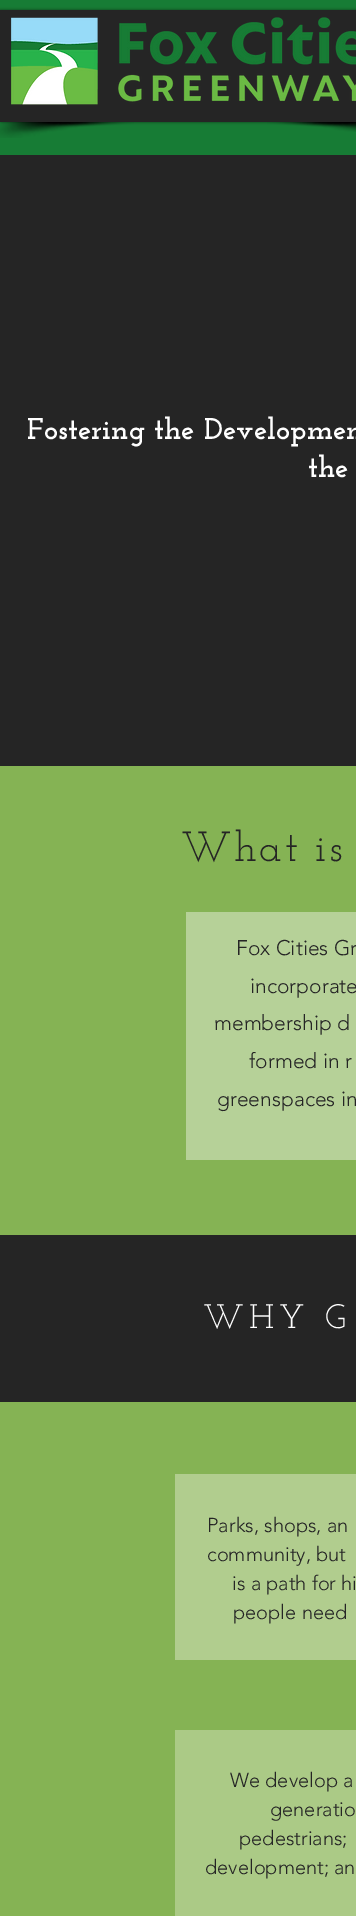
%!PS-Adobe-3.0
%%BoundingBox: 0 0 356 1916
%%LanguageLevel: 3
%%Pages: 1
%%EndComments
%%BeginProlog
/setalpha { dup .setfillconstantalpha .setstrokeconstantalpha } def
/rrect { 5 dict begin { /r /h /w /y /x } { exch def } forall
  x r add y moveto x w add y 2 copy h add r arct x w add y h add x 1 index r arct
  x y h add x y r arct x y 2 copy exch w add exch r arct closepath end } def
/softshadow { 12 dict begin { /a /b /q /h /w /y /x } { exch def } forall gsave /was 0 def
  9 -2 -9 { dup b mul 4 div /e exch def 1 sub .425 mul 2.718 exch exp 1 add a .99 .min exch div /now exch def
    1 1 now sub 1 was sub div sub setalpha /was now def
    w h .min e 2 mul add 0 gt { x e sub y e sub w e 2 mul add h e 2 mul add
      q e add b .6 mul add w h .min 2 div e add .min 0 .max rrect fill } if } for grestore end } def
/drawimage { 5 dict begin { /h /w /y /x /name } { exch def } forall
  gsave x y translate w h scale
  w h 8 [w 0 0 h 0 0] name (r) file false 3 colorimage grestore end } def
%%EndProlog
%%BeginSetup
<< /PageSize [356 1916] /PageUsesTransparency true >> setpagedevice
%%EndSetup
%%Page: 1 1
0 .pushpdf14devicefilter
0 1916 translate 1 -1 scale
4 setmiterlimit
0.09 0.486 0.208 setrgbcolor
0 0 356 1916 rectfill
0 setgray
0 10 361 112 0 1.5 0.5 softshadow
0.145 setgray
0 10 356 112 rectfill
(images/1.raw) 11 17 345 88 drawimage
(images/2.raw) 0 122 134 16 drawimage
(images/3.raw) 267 122 89 10 drawimage
0 155 356 611 rectfill
0.522 0.702 0.329 setrgbcolor
0 766 356 469 rectfill
0.714 0.82 0.596 setrgbcolor
186 912 170 248 rectfill
0.145 setgray
0 1235 356 167 rectfill
0.522 0.702 0.329 setrgbcolor
0 1402 356 514 rectfill
0.694 0.804 0.557 setrgbcolor
175 1474 181 186 rectfill
0.671 0.792 0.525 setrgbcolor
175 1730 181 186 rectfill
/JosefinSlab-Bold [30 0 0 -30 0 0] selectfont
1 setgray
27 439 moveto (Fostering the Developmen) show
308 477 moveto (the) show
/JosefinSlab-Regular [42 0 0 -42 0 0] selectfont
0.145 setgray
181 861 moveto 2.5 0 (What is) ashow
/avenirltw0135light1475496-Light [21 0 0 -21 0 0] selectfont
236 955 moveto (Fox Cities Gr) show
250 993 moveto (incorporate) show
214 1030 moveto (membership d) show
249 1068 moveto (formed in r) show
217 1106 moveto (greenspaces in) show
/JosefinSlab-Regular [34 0 0 -34 0 0] selectfont
1 setgray
203 1328 moveto 5 0 (WHY G) ashow
/avenirltw0135light1475496-Light [20 0 0 -20 0 0] selectfont
0.145 setgray
207 1532 moveto (Parks, shops, an) show
207 1561 moveto (community, but) show
232 1590 moveto (is a path for hi) show
233 1619 moveto (people need) show
230 1787 moveto (We develop a) show
270 1816 moveto (generatio) show
239 1845 moveto (pedestrians;) show
205 1874 moveto (development; an) show
.poppdf14devicefilter showpage
%%EOF
